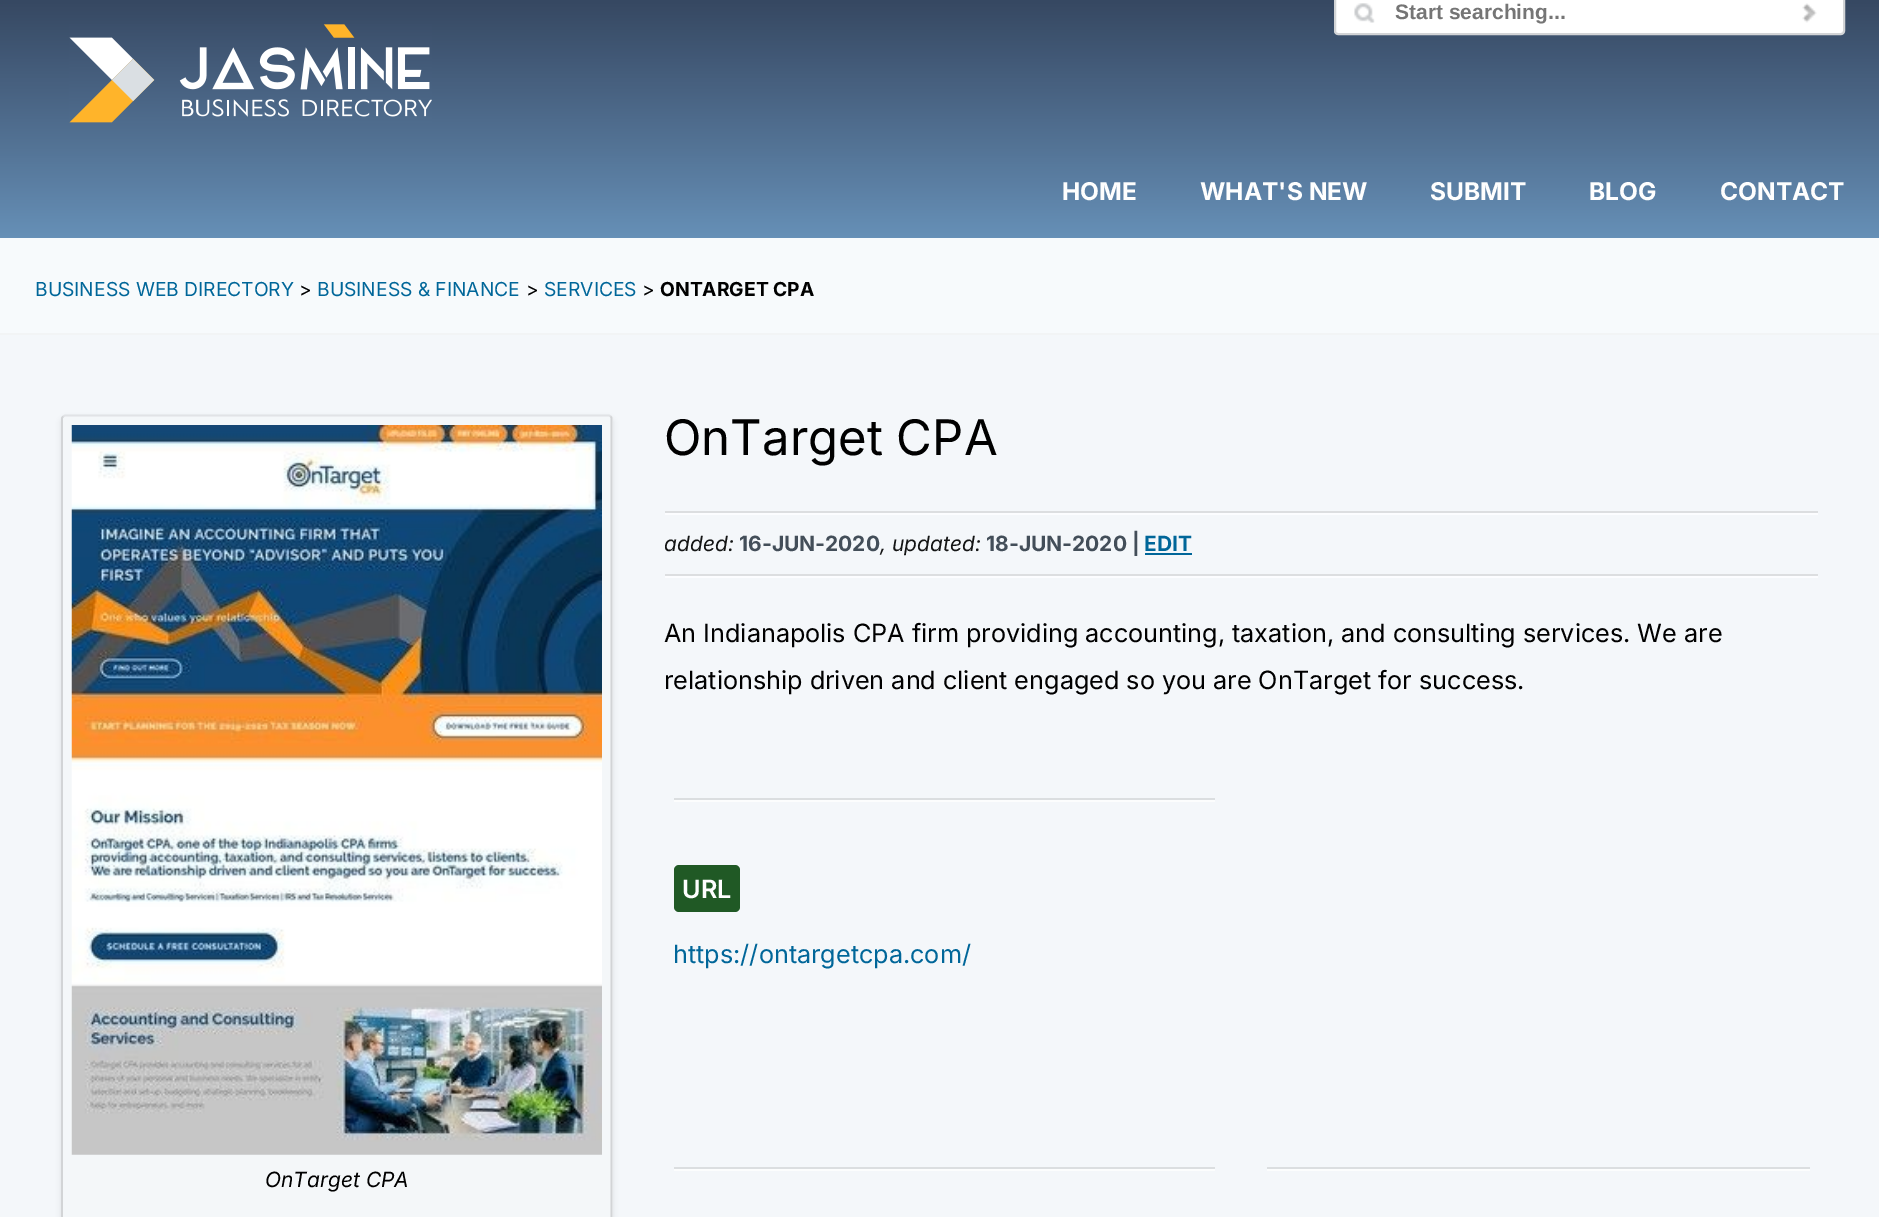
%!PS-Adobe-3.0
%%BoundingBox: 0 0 1879 1217
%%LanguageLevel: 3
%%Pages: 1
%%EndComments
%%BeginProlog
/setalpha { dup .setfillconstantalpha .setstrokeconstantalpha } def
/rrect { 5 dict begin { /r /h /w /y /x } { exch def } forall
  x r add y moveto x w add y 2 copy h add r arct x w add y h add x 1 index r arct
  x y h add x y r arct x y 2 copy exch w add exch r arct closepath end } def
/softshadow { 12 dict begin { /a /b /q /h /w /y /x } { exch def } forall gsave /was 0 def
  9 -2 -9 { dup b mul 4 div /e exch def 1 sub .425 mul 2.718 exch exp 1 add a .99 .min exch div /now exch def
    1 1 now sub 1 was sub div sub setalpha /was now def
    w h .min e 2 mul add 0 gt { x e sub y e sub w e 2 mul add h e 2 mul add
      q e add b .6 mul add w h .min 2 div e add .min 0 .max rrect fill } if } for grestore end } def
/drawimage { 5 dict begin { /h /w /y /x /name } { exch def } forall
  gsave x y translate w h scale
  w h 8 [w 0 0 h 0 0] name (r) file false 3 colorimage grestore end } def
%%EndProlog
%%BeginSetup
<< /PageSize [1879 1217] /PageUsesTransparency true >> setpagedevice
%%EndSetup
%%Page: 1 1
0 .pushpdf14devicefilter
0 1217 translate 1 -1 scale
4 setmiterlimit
0.957 0.969 0.98 setrgbcolor
0 0 1879 1217 rectfill
gsave newpath 0 0 moveto 1879 0 lineto 1879 238 lineto 0 238 lineto closepath clip newpath
<< /ShadingType 2 /ColorSpace /DeviceRGB /Coords [940 -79 940 238] /Extend [true true] /Function << /FunctionType 3 /Domain [0 1] /Functions [<< /FunctionType 2 /Domain [0 1] /C0 [0.149 0.2 0.282] /C1 [0.212 0.282 0.384] /N 1 >> << /FunctionType 2 /Domain [0 1] /C0 [0.212 0.282 0.384] /C1 [0.275 0.373 0.494] /N 1 >> << /FunctionType 2 /Domain [0 1] /C0 [0.275 0.373 0.494] /C1 [0.337 0.467 0.604] /N 1 >> << /FunctionType 2 /Domain [0 1] /C0 [0.337 0.467 0.604] /C1 [0.4 0.565 0.718] /N 1 >>] /Bounds [0.25 0.5 0.75] /Encode [0 1 0 1 0 1 0 1] >> >> shfill grestore
1 setgray
1335 -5 509 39 3 rrect gsave fill grestore
0.824 0.831 0.839 setrgbcolor
2 setlinewidth
stroke
(images/1.raw) 1354 3 21 20 drawimage
(images/2.raw) 1802 3 15 20 drawimage
(images/3.raw) 69 24 363 99 drawimage
0.969 0.98 0.988 setrgbcolor
0 238 1879 95 rectfill
0.949 0.957 0.961 setrgbcolor
0 333 1879 2 rectfill
0.863 0.871 0.878 setrgbcolor
665 511 1153 2 rectfill
0.988 0.992 1 setrgbcolor
665 576 1153 2 rectfill
665 513 1153 2 rectfill
0.863 0.871 0.878 setrgbcolor
665 574 1153 2 rectfill
0 0.4 0.6 setrgbcolor
1145 553 47 2 rectfill
0.859 0.871 0.878 setrgbcolor
674 798 541 2 rectfill
0.988 0.992 0.992 setrgbcolor
674 800 541 2 rectfill
0.125 0.349 0.145 setrgbcolor
674 865 66 47 5 rrect fill
0.859 0.871 0.878 setrgbcolor
674 1167 541 2 rectfill
0.988 0.992 0.992 setrgbcolor
674 1169 541 2 rectfill
0.859 0.871 0.878 setrgbcolor
1267 1167 543 2 rectfill
0.988 0.992 0.992 setrgbcolor
1267 1169 543 2 rectfill
0 setgray
61 418 552 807 4 2.5 0.08 softshadow
0.957 0.969 0.976 setrgbcolor
61 415 552 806 4 rrect fill
0.882 0.89 0.902 setrgbcolor
1.8 setlinewidth
newpath 63 416.5 moveto 65 415.5 lineto 609 415.5 lineto 611 416.5 lineto stroke
0.824 0.831 0.839 setrgbcolor
newpath 611 416.5 moveto 611.5 418 lineto 611.5 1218 lineto 611 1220 lineto stroke
newpath 63 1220 moveto 62 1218 lineto 62 418 lineto 63 416.5 lineto stroke
(images/4.raw) 71 425 531 730 drawimage
/LiberationSans-Bold [21 0 0 -21 0 0] selectfont
0.459 setgray
1395 19 moveto (Start searching...) show
/Inter-Bold [24.5 0 0 -24.5 0 0] selectfont
0.996 setgray
1062 200 moveto (HOME) show
1200 200 moveto (WHAT'S NEW) show
1430 200 moveto (SUBMIT) show
1589 200 moveto (BLOG) show
1720 200 moveto (CONTACT) show
/Inter-Regular [19.25 0 0 -19.25 0 0] selectfont
0 0.4 0.6 setrgbcolor
35 296 moveto (BUSINESS WEB DIRECTORY) show
0 setgray
299 296 moveto (>) show
0 0.4 0.6 setrgbcolor
317 296 moveto (BUSINESS & FINANCE) show
0 setgray
526 296 moveto (>) show
0 0.4 0.6 setrgbcolor
544 296 moveto (SERVICES) show
0 setgray
642 296 moveto (>) show
/Inter-Bold [19.25 0 0 -19.25 0 0] selectfont
660 296 moveto (ONTARGET CPA) show
/Inter-Regular [49 0 0 -49 0 0] selectfont
664 455 moveto (OnTarget CPA) show
/Inter-Italic [21 0 0 -21 0 0] selectfont
0.078 0.082 0.082 setrgbcolor
664 551 moveto (added:) show
/Inter-Bold [21 0 0 -21 0 0] selectfont
0.263 0.306 0.349 setrgbcolor
739 551 moveto (16-JUN-2020) show
/Inter-Italic [21 0 0 -21 0 0] selectfont
0.078 0.082 0.082 setrgbcolor
880 551 moveto (, updated:) show
/Inter-Bold [21 0 0 -21 0 0] selectfont
0.263 0.306 0.349 setrgbcolor
986 551 moveto (18-JUN-2020 |) show
0 0.4 0.6 setrgbcolor
1144 551 moveto (EDIT) show
/Inter-Regular [25.2 0 0 -25.2 0 0] selectfont
0 setgray
664 642 moveto (An Indianapolis CPA firm providing accounting, taxation, and consulting services. We are) show
664 689 moveto (relationship driven and client engaged so you are OnTarget for success.) show
/Inter-SemiBold [25.2 0 0 -25.2 0 0] selectfont
0.996 setgray
682 898 moveto (URL) show
/Inter-Regular [25.2 0 0 -25.2 0 0] selectfont
0 0.4 0.6 setrgbcolor
673 963 moveto (https://ontargetcpa.com/) show
/Inter-Italic [21 0 0 -21 0 0] selectfont
0 setgray
265 1187 moveto (OnTarget CPA) show
.poppdf14devicefilter showpage
%%EOF
